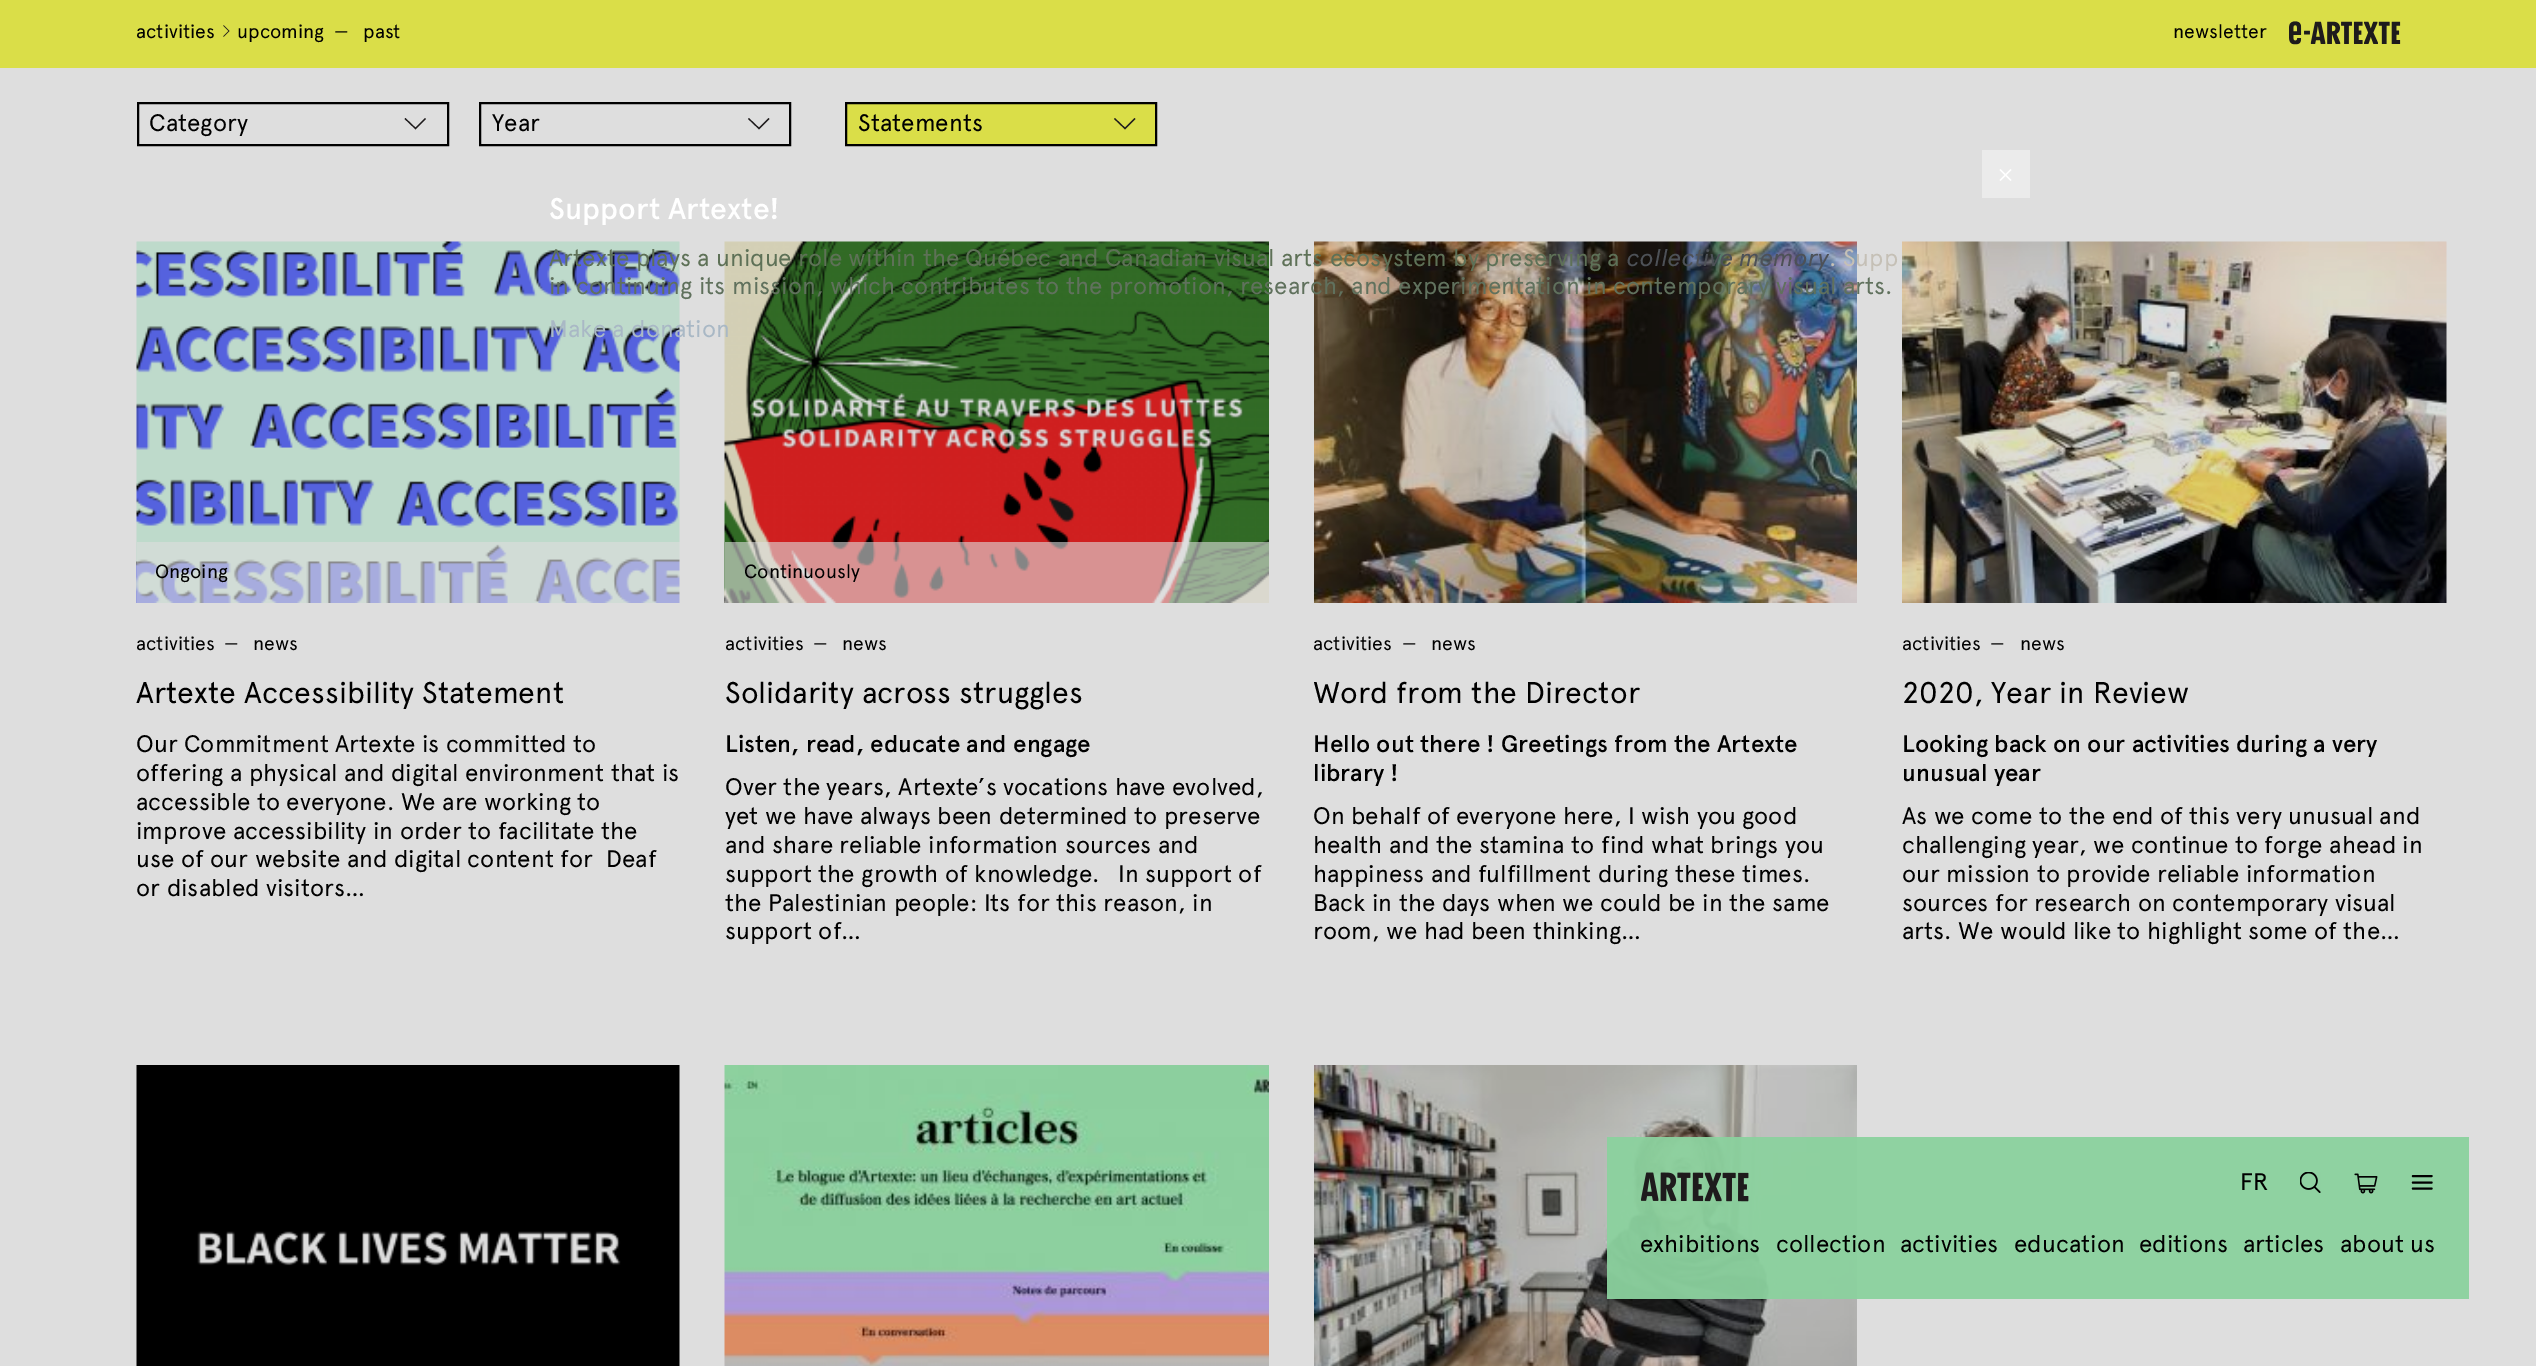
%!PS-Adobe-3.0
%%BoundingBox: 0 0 2536 1366
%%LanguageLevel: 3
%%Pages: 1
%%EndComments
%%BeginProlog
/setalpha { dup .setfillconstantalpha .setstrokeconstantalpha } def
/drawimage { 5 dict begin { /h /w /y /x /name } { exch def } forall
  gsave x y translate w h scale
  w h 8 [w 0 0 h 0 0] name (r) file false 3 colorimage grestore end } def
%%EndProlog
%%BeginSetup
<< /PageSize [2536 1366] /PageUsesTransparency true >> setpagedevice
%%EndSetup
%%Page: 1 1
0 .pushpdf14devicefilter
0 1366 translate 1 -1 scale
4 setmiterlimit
0.871 setgray
0 0 2536 1366 rectfill
0.855 0.871 0.282 setrgbcolor
0 0 2536 68 rectfill
0.118 0.106 0.11 setrgbcolor
0.7 setlinewidth
newpath 223.5 25.5 moveto 229 31 lineto 223.5 36.5 lineto stroke
(images/1.raw) 2289 21 112 24 drawimage
(images/11.raw) 1314 1065 543 301 drawimage
0.95 setalpha
0.545 0.82 0.62 setrgbcolor
1607 1137 862 162 rectfill
1 setalpha
(images/2.raw) 1641 1172 108 30 drawimage
(images/3.raw) 2300 1172 21 21 drawimage
(images/4.raw) 2354 1173 24 21 drawimage
0 setgray
2.1 setlinewidth
1 setlinecap
1 setlinejoin
newpath 2413 1176 moveto 2431.5 1176 lineto 2413 1182.5 moveto 2431.5 1182.5 lineto 2413 1188.5 moveto 2431.5 1188.5 lineto stroke
2 setlinewidth
0 setlinecap
0 setlinejoin
138 103 310 42 rectstroke
0.118 0.106 0.11 setrgbcolor
1.2 setlinewidth
newpath 425.5 118.5 moveto 415.5 128.5 lineto 405 118.5 lineto stroke
0 setgray
2 setlinewidth
480 103 310 42 rectstroke
0.118 0.106 0.11 setrgbcolor
1.2 setlinewidth
newpath 769 118.5 moveto 759 128.5 lineto 748.5 118.5 lineto stroke
0.855 0.871 0.282 setrgbcolor
newpath 846 103 moveto 1156 103 lineto 1156 145 lineto 846 145 lineto closepath gsave fill grestore
0 setgray
2 setlinewidth
stroke
0.118 0.106 0.11 setrgbcolor
1.2 setlinewidth
newpath 1135 118.5 moveto 1125 128.5 lineto 1114.5 118.5 lineto stroke
(images/5.raw) 136 241 544 362 drawimage
0.6 setalpha
0.871 setgray
137 542 543 61 rectfill
1 setalpha
(images/6.raw) 724 241 545 362 drawimage
0.6 setalpha
725 542 544 61 rectfill
1 setalpha
(images/7.raw) 1314 241 543 362 drawimage
(images/8.raw) 1902 241 545 362 drawimage
(images/9.raw) 136 1065 544 301 drawimage
(images/10.raw) 724 1065 545 301 drawimage
0.922 setgray
1982 150 48 48 rectfill
/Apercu-Regular [19.25 0 0 -19.25 0 0] selectfont
0 setgray
136 38 moveto (activities) show
237 38 moveto (upcoming) show
334 38 moveto (—) show
363 38 moveto (past) show
2173 38 moveto (newsletter) show
/Apercu-Regular [24 0 0 -24 0 0] selectfont
2240 1190 moveto (FR) show
1640 1252 moveto (exhibitions) show
1776 1252 moveto (collection) show
1900 1252 moveto (activities) show
2014 1252 moveto (education) show
2139 1252 moveto (editions) show
2243 1252 moveto (articles) show
2340 1252 moveto (about us) show
149 131 moveto (Category) show
492 131 moveto (Year) show
858 131 moveto (Statements) show
/Apercu-Regular [19.25 0 0 -19.25 0 0] selectfont
155 578 moveto (Ongoing) show
136 650 moveto (activities) show
224 650 moveto (—) show
253 650 moveto (news) show
/Apercu-Regular [30 0 0 -30 0 0] selectfont
136 703 moveto (Artexte Accessibility Statement) show
/Apercu-Regular [24 0 0 -24 0 0] selectfont
136 752 moveto (Our Commitment Artexte is committed to) show
136 781 moveto (offering a physical and digital environment that is) show
136 810 moveto (accessible to everyone. We are working to) show
136 839 moveto (improve accessibility in order to facilitate the) show
136 867 moveto (use of our website and digital content for  Deaf) show
136 896 moveto (or disabled visitors…) show
/Apercu-Regular [19.25 0 0 -19.25 0 0] selectfont
744 578 moveto (Continuously) show
725 650 moveto (activities) show
813 650 moveto (—) show
842 650 moveto (news) show
/Apercu-Regular [30 0 0 -30 0 0] selectfont
725 703 moveto (Solidarity across struggles) show
/Apercu-Medium [24 0 0 -24 0 0] selectfont
725 752 moveto (Listen, read, educate and engage) show
/Apercu-Regular [24 0 0 -24 0 0] selectfont
725 795 moveto (Over the years, Artexte’s vocations have evolved,) show
725 824 moveto (yet we have always been determined to preserve) show
725 853 moveto (and share reliable information sources and) show
725 882 moveto (support the growth of knowledge.) show
1118 882 moveto (In support of) show
725 911 moveto (the Palestinian people: Its for this reason, in) show
725 939 moveto (support of…) show
/Apercu-Regular [19.25 0 0 -19.25 0 0] selectfont
1313 650 moveto (activities) show
1402 650 moveto (—) show
1431 650 moveto (news) show
/Apercu-Regular [30 0 0 -30 0 0] selectfont
1313 703 moveto (Word from the Director) show
/Apercu-Medium [24 0 0 -24 0 0] selectfont
1313 752 moveto (Hello out there ! Greetings from the Artexte) show
1313 781 moveto (library !) show
/Apercu-Regular [24 0 0 -24 0 0] selectfont
1313 824 moveto (On behalf of everyone here, I wish you good) show
1313 853 moveto (health and the stamina to find what brings you) show
1313 882 moveto (happiness and fulfillment during these times.) show
1313 911 moveto (Back in the days when we could be in the same) show
1313 939 moveto (room, we had been thinking…) show
/Apercu-Regular [19.25 0 0 -19.25 0 0] selectfont
1902 650 moveto (activities) show
1990 650 moveto (—) show
2020 650 moveto (news) show
/Apercu-Regular [30 0 0 -30 0 0] selectfont
1902 703 moveto (2020, Year in Review) show
/Apercu-Medium [24 0 0 -24 0 0] selectfont
1902 752 moveto (Looking back on our activities during a very) show
1902 781 moveto (unusual year) show
/Apercu-Regular [24 0 0 -24 0 0] selectfont
1902 824 moveto (As we come to the end of this very unusual and) show
1902 853 moveto (challenging year, we continue to forge ahead in) show
1902 882 moveto (our mission to provide reliable information) show
1902 911 moveto (sources for research on contemporary visual) show
1902 939 moveto (arts. We would like to highlight some of the…) show
/LiberationSerif-Regular [30 0 0 -30 0 0] selectfont
1 setgray
1997 185 moveto (×) show
/Apercu-Medium [30 0 0 -30 0 0] selectfont
549 219 moveto (Support Artexte!) show
/Apercu-Regular [24 0 0 -24 0 0] selectfont
0.369 0.443 0.341 setrgbcolor
549 266 moveto (Artexte plays a unique role within the Québec and Canadian visual arts ecosystem by preserving a) show
/Apercu-Italic [24 0 0 -24 0 0] selectfont
0.302 0.318 0.341 setrgbcolor
1627 266 moveto (collective memory) show
/Apercu-Regular [24 0 0 -24 0 0] selectfont
0.773 0.753 0.714 setrgbcolor
1829 266 moveto (. Supp) show
0.376 0.443 0.365 setrgbcolor
549 294 moveto (in continuing its mission, which contributes to the promotion, research, and experimentation in contemporary visual arts.) show
0.663 0.722 0.773 setrgbcolor
549 337 moveto (Make a donation) show
.poppdf14devicefilter showpage
%%EOF
